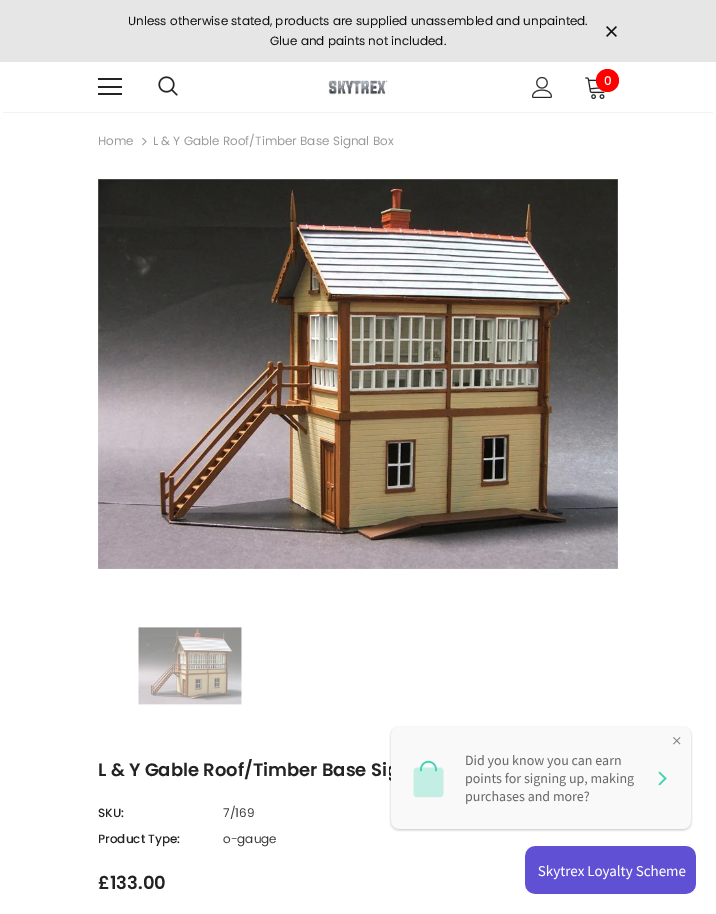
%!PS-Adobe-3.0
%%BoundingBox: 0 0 716 914
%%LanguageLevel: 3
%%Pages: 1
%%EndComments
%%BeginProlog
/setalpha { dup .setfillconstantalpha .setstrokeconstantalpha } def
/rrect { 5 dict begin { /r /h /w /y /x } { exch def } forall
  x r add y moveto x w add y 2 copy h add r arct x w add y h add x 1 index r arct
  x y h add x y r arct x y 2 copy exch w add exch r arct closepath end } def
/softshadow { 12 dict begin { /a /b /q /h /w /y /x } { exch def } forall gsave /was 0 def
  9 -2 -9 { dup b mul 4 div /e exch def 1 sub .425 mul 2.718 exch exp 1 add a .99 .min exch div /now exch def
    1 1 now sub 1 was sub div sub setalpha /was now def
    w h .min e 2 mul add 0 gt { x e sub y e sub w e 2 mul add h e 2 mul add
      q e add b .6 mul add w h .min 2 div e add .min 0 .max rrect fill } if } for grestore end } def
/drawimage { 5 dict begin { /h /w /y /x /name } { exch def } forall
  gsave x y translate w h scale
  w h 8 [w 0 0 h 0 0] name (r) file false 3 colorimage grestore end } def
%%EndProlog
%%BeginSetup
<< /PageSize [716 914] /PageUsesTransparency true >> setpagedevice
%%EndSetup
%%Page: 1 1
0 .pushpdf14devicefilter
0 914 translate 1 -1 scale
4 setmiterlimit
1 setgray
0 0 716 914 rectfill
0.902 setgray
0 0 716 62 rectfill
(images/1.raw) 606 26 11 11 drawimage
gsave
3 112 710 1 rectclip
0 setgray
3 68 710 44 0 1.5 0.12 softshadow
grestore
0.137 setgray
98 78 24 2 rectfill
98 86 24 2 rectfill
98 93 24 2 rectfill
(images/2.raw) 158 76 20 20 drawimage
(images/3.raw) 328 80 60 15 drawimage
(images/4.raw) 532 77 20 21 drawimage
(images/5.raw) 585 77 20 22 drawimage
1 0 0 setrgbcolor
newpath 607.5 80.5 11.5 0 360 arc closepath fill
(images/6.raw) 142 137 5 9 drawimage
(images/7.raw) 98 179 520 390 drawimage
(images/8.raw) 138 627 104 78 drawimage
(images/9.raw) 389 726 304 106 drawimage
(images/10.raw) 525 846 171 48 drawimage
/Poppins-Regular [12 0 0 -12 0 0] selectfont
0.059 setgray
128 25 moveto (Unless otherwise stated, products are supplied unassembled and unpainted.) show
270 45 moveto (Glue and paints not included.) show
/Poppins-Medium [12 0 0 -12 0 0] selectfont
1 setgray
604 85 moveto (0) show
/Poppins-Regular [12 0 0 -12 0 0] selectfont
0.6 setgray
98 145 moveto (Home) show
153 145 moveto (L & Y Gable Roof/Timber Base Signal Box) show
/Poppins-SemiBold [18 0 0 -18 0 0] selectfont
0.137 setgray
98 776 moveto (L & Y Gable Roof/Timber Base Si) show
/Poppins-Medium [12 0 0 -12 0 0] selectfont
98 817 moveto (SKU:) show
/Poppins-Regular [12 0 0 -12 0 0] selectfont
0.235 setgray
223 817 moveto (7/169) show
/Poppins-Medium [12 0 0 -12 0 0] selectfont
0.137 setgray
98 843 moveto (Product Type:) show
/Poppins-Regular [12 0 0 -12 0 0] selectfont
0.235 setgray
223 843 moveto (o-gauge) show
/Poppins-SemiBold [18 0 0 -18 0 0] selectfont
0.137 setgray
98 889 moveto (£133.00) show
.poppdf14devicefilter showpage
%%EOF
